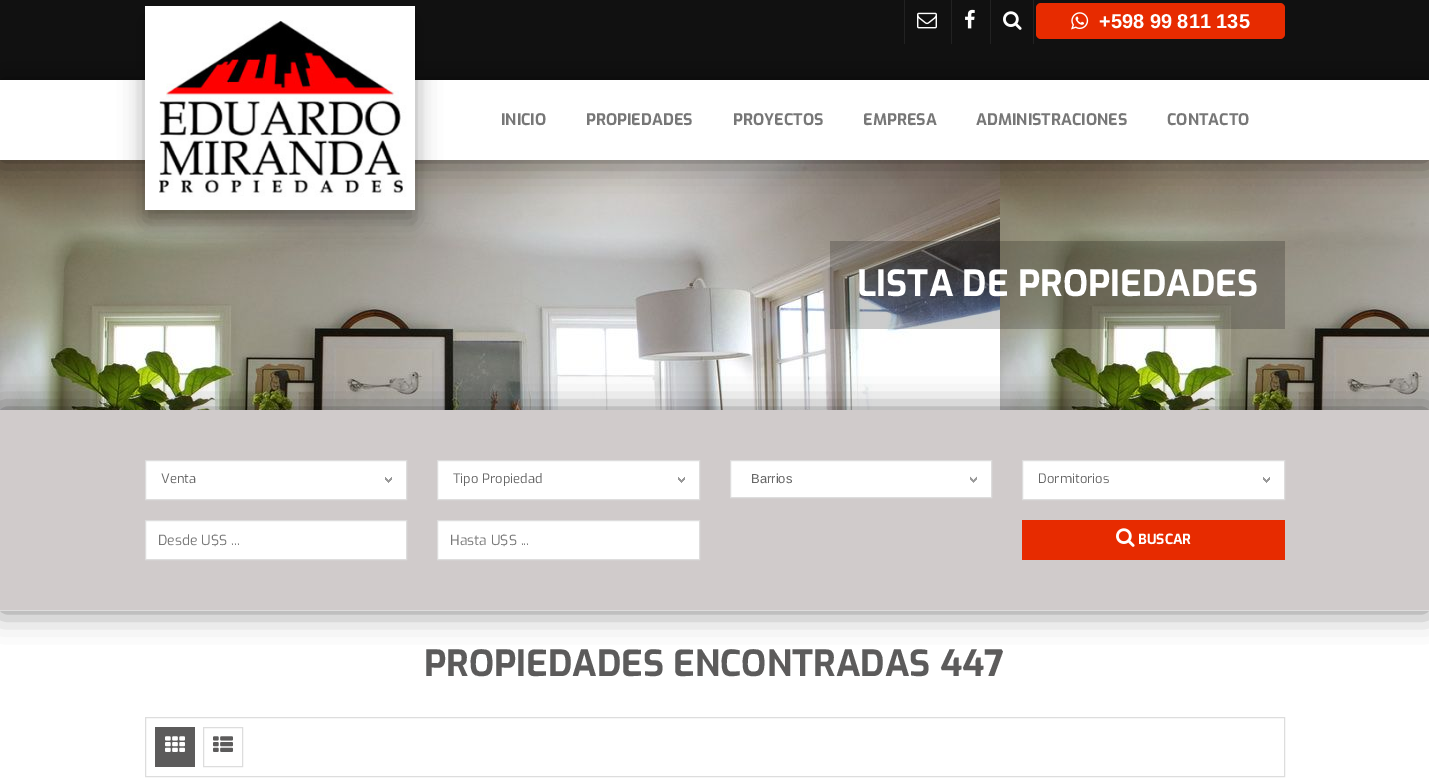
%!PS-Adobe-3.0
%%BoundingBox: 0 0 1429 780
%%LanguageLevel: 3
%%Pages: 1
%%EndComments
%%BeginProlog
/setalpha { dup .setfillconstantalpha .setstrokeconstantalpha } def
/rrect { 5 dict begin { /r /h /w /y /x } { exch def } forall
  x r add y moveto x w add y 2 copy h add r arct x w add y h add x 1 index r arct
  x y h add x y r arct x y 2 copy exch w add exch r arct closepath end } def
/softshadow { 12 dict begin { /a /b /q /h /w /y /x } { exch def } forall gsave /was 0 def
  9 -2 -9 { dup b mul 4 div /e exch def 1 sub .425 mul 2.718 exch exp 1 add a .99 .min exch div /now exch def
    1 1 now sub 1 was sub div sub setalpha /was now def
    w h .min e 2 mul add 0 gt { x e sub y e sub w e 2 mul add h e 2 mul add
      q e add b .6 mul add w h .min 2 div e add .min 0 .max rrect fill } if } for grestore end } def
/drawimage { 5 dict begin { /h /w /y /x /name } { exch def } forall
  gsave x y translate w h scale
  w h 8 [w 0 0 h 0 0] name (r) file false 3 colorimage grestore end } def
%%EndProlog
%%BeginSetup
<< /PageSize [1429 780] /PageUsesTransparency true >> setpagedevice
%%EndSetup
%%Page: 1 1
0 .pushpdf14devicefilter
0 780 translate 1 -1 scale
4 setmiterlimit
1 setgray
0 0 1429 780 rectfill
0.067 setgray
0 0 1429 80 rectfill
0.133 setgray
1033 0 1 44 rectfill
904 0 1 44 rectfill
(images/1.raw) 917 12 20 17 drawimage
951 0 1 44 rectfill
(images/2.raw) 965 9 10 20 drawimage
990 0 1 44 rectfill
(images/3.raw) 1003 11 19 19 drawimage
0.906 0.169 0 setrgbcolor
1036 3 249 36 5 rrect fill
(images/4.raw) 1071 12 18 18 drawimage
(images/6.raw) 0 160 1429 250 drawimage
0 setgray
0 80 1429 80 0 15 0.5 softshadow
1 setgray
0 80 1429 80 rectfill
0 setgray
145 19 270 204 0 12.5 0.2 softshadow
145 12 270 204 0 10 0.19 softshadow
(images/5.raw) 145 6 270 204 drawimage
0.2 setalpha
830 241 455 88 rectfill
1 setalpha
0 410 1429 201 0 15 0.5 softshadow
0.816 0.796 0.796 setrgbcolor
0 410 1429 200 rectfill
0.867 setgray
0 610 1429 1 rectfill
1 setgray
newpath 145.5 460.5 moveto 406.5 460.5 lineto 406.5 499.5 lineto 145.5 499.5 lineto closepath gsave fill grestore
0.867 setgray
stroke
(images/7.raw) 385 477 7 6 drawimage
1 setgray
newpath 437.5 460.5 moveto 699.5 460.5 lineto 699.5 499.5 lineto 437.5 499.5 lineto closepath gsave fill grestore
0.867 setgray
stroke
(images/7.raw) 678 477 7 6 drawimage
1 setgray
newpath 730.5 460.5 moveto 991.5 460.5 lineto 991.5 497.5 lineto 730.5 497.5 lineto closepath gsave fill grestore
0.867 setgray
stroke
(images/8.raw) 970 476 7 7 drawimage
1 setgray
newpath 1022.5 460.5 moveto 1284.5 460.5 lineto 1284.5 499.5 lineto 1022.5 499.5 lineto closepath gsave fill grestore
0.867 setgray
stroke
(images/7.raw) 1263 477 7 6 drawimage
1 setgray
newpath 145.5 520.5 moveto 406.5 520.5 lineto 406.5 559.5 lineto 145.5 559.5 lineto closepath gsave fill grestore
0.867 setgray
stroke
1 setgray
newpath 437.5 520.5 moveto 699.5 520.5 lineto 699.5 559.5 lineto 437.5 559.5 lineto closepath gsave fill grestore
0.867 setgray
stroke
0.906 0.169 0 setrgbcolor
1022 520 263 40 rectfill
(images/9.raw) 1116 528 19 19 drawimage
0.867 setgray
145.5 717.5 1139 59 rectstroke
0.361 0.357 0.357 setrgbcolor
155 727 40 40 rectfill
(images/10.raw) 165 736 20 16 drawimage
0.867 setgray
203.5 727.5 39 39 rectstroke
(images/11.raw) 213 736 20 16 drawimage
/LiberationSans-Bold [20 0 0 -20 0 0] selectfont
1 setgray
1099 28 moveto (+598 99 811 135) show
/Exo-Bold [16 0 0 -16 0 0] selectfont
0.467 setgray
501 125 moveto (INICIO) show
586 125 moveto (PROPIEDADES) show
733 125 moveto (PROYECTOS) show
863 125 moveto (EMPRESA) show
976 125 moveto (ADMINISTRACIONES) show
1167 125 moveto (CONTACTO) show
/Exo-Bold [36 0 0 -36 0 0] selectfont
1 setgray
857 296 moveto (LISTA DE PROPIEDADES) show
/Exo-Regular [13 0 0 -13 0 0] selectfont
0.4 setgray
161 483 moveto (Venta) show
453 483 moveto (Tipo Propiedad) show
/LiberationSans-Regular [13 0 0 -13 0 0] selectfont
751 483 moveto (Barrios) show
/Exo-Regular [13 0 0 -13 0 0] selectfont
1038 483 moveto (Dormitorios) show
/Exo-Regular [14 0 0 -14 0 0] selectfont
0.467 setgray
158 545 moveto (Desde U$S ...) show
450 545 moveto (Hasta U$S ...) show
/Exo-Bold [14 0 0 -14 0 0] selectfont
1 setgray
1138 544 moveto (BUSCAR) show
/Exo-Bold [36 0 0 -36 0 0] selectfont
0.361 0.357 0.357 setrgbcolor
424 676 moveto (PROPIEDADES ENCONTRADAS 447) show
.poppdf14devicefilter showpage
%%EOF
